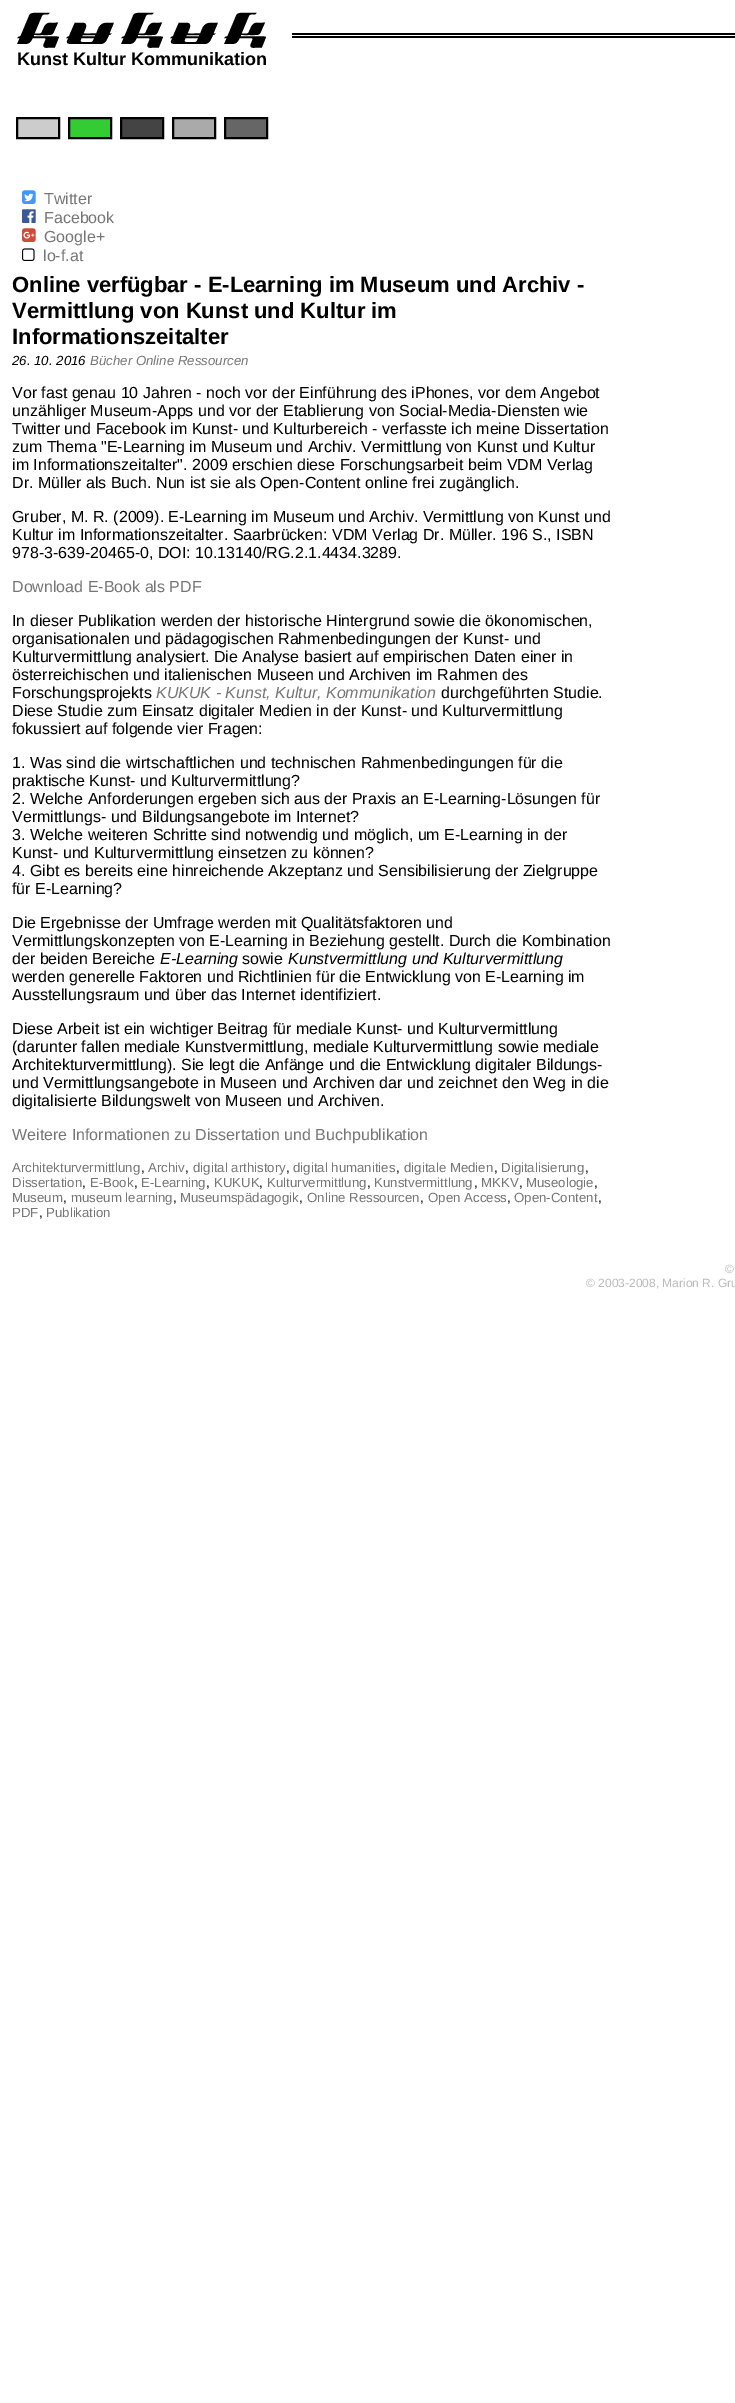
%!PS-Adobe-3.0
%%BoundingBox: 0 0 735 2403
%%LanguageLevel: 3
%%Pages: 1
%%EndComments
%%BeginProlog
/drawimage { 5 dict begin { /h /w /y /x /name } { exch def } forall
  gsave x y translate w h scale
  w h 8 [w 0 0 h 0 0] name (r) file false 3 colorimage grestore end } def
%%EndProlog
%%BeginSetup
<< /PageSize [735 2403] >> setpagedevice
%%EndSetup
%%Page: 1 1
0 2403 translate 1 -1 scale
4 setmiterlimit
1 setgray
0 0 735 2403 rectfill
0 setgray
292 33 443 2 rectfill
292 36 443 2 rectfill
0.8 setgray
newpath 17 118 moveto 59 118 lineto 59 138 lineto 17 138 lineto closepath gsave fill grestore
0 setgray
2 setlinewidth
stroke
0.2 0.8 0.2 setrgbcolor
newpath 69 118 moveto 111 118 lineto 111 138 lineto 69 138 lineto closepath gsave fill grestore
0 setgray
stroke
0.267 setgray
newpath 121 118 moveto 163 118 lineto 163 138 lineto 121 138 lineto closepath gsave fill grestore
0 setgray
stroke
0.667 setgray
newpath 173 118 moveto 215 118 lineto 215 138 lineto 173 138 lineto closepath gsave fill grestore
0 setgray
stroke
0.4 setgray
newpath 225 118 moveto 267 118 lineto 267 138 lineto 225 138 lineto closepath gsave fill grestore
0 setgray
stroke
(images/1.raw) 22 190 14 14 drawimage
(images/2.raw) 22 209 14 14 drawimage
(images/3.raw) 22 228 14 14 drawimage
(images/4.raw) 22 248 13 13 drawimage
/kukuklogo-ExtraBold [83 0 0 -83 0 0] selectfont
17 44 moveto (kukuk) show
/LiberationSans-Bold [18 0 0 -18 0 0] selectfont
17 65 moveto (Kunst Kultur Kommunikation) show
/LiberationSans-Regular [16 0 0 -16 0 0] selectfont
0.463 setgray
44 204 moveto (Twitter) show
44 223 moveto (Facebook) show
44 242 moveto (Google+) show
43 261 moveto (lo-f.at) show
/LiberationSans-Bold [22 0 0 -22 0 0] selectfont
0 setgray
12 292 moveto (Online verfügbar - E-Learning im Museum und Archiv -) show
12 318 moveto (Vermittlung von Kunst und Kultur im) show
12 344 moveto (Informationszeitalter) show
/LiberationSans-Italic [13.25 0 0 -13.25 0 0] selectfont
12 365 moveto (26. 10. 2016) show
0.463 setgray
90 365 moveto (Bücher Online Ressourcen) show
/LiberationSans-Regular [16 0 0 -16 0 0] selectfont
0 setgray
12 398 moveto (Vor fast genau 10 Jahren - noch vor der Einführung des iPhones, vor dem Angebot) show
12 416 moveto (unzähliger Museum-Apps und vor der Etablierung von Social-Media-Diensten wie) show
12 434 moveto (Twitter und Facebook im Kunst- und Kulturbereich - verfasste ich meine Dissertation) show
12 452 moveto (zum Thema "E-Learning im Museum und Archiv. Vermittlung von Kunst und Kultur) show
12 470 moveto (im Informationszeitalter". 2009 erschien diese Forschungsarbeit beim VDM Verlag) show
12 488 moveto (Dr. Müller als Buch. Nun ist sie als Open-Content online frei zugänglich.) show
12 522 moveto (Gruber, M. R. \(2009\). E-Learning im Museum und Archiv. Vermittlung von Kunst und) show
12 540 moveto (Kultur im Informationszeitalter. Saarbrücken: VDM Verlag Dr. Müller. 196 S., ISBN) show
12 558 moveto (978-3-639-20465-0, DOI: 10.13140/RG.2.1.4434.3289.) show
0.463 setgray
12 592 moveto (Download E-Book als PDF) show
0 setgray
12 626 moveto (In dieser Publikation werden der historische Hintergrund sowie die ökonomischen,) show
12 644 moveto (organisationalen und pädagogischen Rahmenbedingungen der Kunst- und) show
12 662 moveto (Kulturvermittlung analysiert. Die Analyse basiert auf empirischen Daten einer in) show
12 680 moveto (österreichischen und italienischen Museen und Archiven im Rahmen des) show
12 698 moveto (Forschungsprojekts) show
/LiberationSans-Italic [16 0 0 -16 0 0] selectfont
0.463 setgray
156 698 moveto (KUKUK - Kunst, Kultur, Kommunikation) show
/LiberationSans-Regular [16 0 0 -16 0 0] selectfont
0 setgray
441 698 moveto (durchgeführten Studie.) show
12 716 moveto (Diese Studie zum Einsatz digitaler Medien in der Kunst- und Kulturvermittlung) show
12 734 moveto (fokussiert auf folgende vier Fragen:) show
12 768 moveto (1. Was sind die wirtschaftlichen und technischen Rahmenbedingungen für die) show
12 786 moveto (praktische Kunst- und Kulturvermittlung?) show
12 804 moveto (2. Welche Anforderungen ergeben sich aus der Praxis an E-Learning-Lösungen für) show
12 822 moveto (Vermittlungs- und Bildungsangebote im Internet?) show
12 840 moveto (3. Welche weiteren Schritte sind notwendig und möglich, um E-Learning in der) show
12 858 moveto (Kunst- und Kulturvermittlung einsetzen zu können?) show
12 876 moveto (4. Gibt es bereits eine hinreichende Akzeptanz und Sensibilisierung der Zielgruppe) show
12 894 moveto (für E-Learning?) show
12 928 moveto (Die Ergebnisse der Umfrage werden mit Qualitätsfaktoren und) show
12 946 moveto (Vermittlungskonzepten von E-Learning in Beziehung gestellt. Durch die Kombination) show
12 964 moveto (der beiden Bereiche) show
/LiberationSans-Italic [16 0 0 -16 0 0] selectfont
160 964 moveto (E-Learning) show
/LiberationSans-Regular [16 0 0 -16 0 0] selectfont
242 964 moveto (sowie) show
/LiberationSans-Italic [16 0 0 -16 0 0] selectfont
288 964 moveto (Kunstvermittlung und Kulturvermittlung) show
/LiberationSans-Regular [16 0 0 -16 0 0] selectfont
12 982 moveto (werden generelle Faktoren und Richtlinien für die Entwicklung von E-Learning im) show
12 1000 moveto (Ausstellungsraum und über das Internet identifiziert.) show
12 1034 moveto (Diese Arbeit ist ein wichtiger Beitrag für mediale Kunst- und Kulturvermittlung) show
12 1052 moveto (\(darunter fallen mediale Kunstvermittlung, mediale Kulturvermittlung sowie mediale) show
12 1070 moveto (Architekturvermittlung\). Sie legt die Anfänge und die Entwicklung digitaler Bildungs-) show
12 1088 moveto (und Vermittlungsangebote in Museen und Archiven dar und zeichnet den Weg in die) show
12 1106 moveto (digitalisierte Bildungswelt von Museen und Archiven.) show
0.463 setgray
12 1140 moveto (Weitere Informationen zu Dissertation und Buchpublikation) show
/LiberationSans-Regular [13.25 0 0 -13.25 0 0] selectfont
12 1172 moveto (Architekturvermittlung) show
0 setgray
141 1172 moveto (,) show
0.463 setgray
148 1172 moveto (Archiv) show
0 setgray
185 1172 moveto (,) show
0.463 setgray
193 1172 moveto (digital arthistory) show
0 setgray
286 1172 moveto (,) show
0.463 setgray
293 1172 moveto (digital humanities) show
0 setgray
396 1172 moveto (,) show
0.463 setgray
404 1172 moveto (digitale Medien) show
0 setgray
494 1172 moveto (,) show
0.463 setgray
501 1172 moveto (Digitalisierung) show
0 setgray
585 1172 moveto (,) show
0.463 setgray
12 1187 moveto (Dissertation) show
0 setgray
82 1187 moveto (,) show
0.463 setgray
90 1187 moveto (E-Book) show
0 setgray
134 1187 moveto (,) show
0.463 setgray
141 1187 moveto (E-Learning) show
0 setgray
206 1187 moveto (,) show
0.463 setgray
214 1187 moveto (KUKUK) show
0 setgray
259 1187 moveto (,) show
0.463 setgray
267 1187 moveto (Kulturvermittlung) show
0 setgray
367 1187 moveto (,) show
0.463 setgray
374 1187 moveto (Kunstvermittlung) show
0 setgray
474 1187 moveto (,) show
0.463 setgray
481 1187 moveto (MKKV) show
0 setgray
519 1187 moveto (,) show
0.463 setgray
526 1187 moveto (Museologie) show
0 setgray
594 1187 moveto (,) show
0.463 setgray
12 1202 moveto (Museum) show
0 setgray
63 1202 moveto (,) show
0.463 setgray
71 1202 moveto (museum learning) show
0 setgray
173 1202 moveto (,) show
0.463 setgray
180 1202 moveto (Museumspädagogik) show
0 setgray
299 1202 moveto (,) show
0.463 setgray
307 1202 moveto (Online Ressourcen) show
0 setgray
420 1202 moveto (,) show
0.463 setgray
428 1202 moveto (Open Access) show
0 setgray
507 1202 moveto (,) show
0.463 setgray
514 1202 moveto (Open-Content) show
0 setgray
598 1202 moveto (,) show
0.463 setgray
12 1217 moveto (PDF) show
0 setgray
39 1217 moveto (,) show
0.463 setgray
46 1217 moveto (Publikation) show
/LiberationSans-Regular [12 0 0 -12 0 0] selectfont
0.733 setgray
725 1273 moveto (©) show
586 1287 moveto (© 2003-2008, Marion R. Gru) show
showpage
%%EOF
